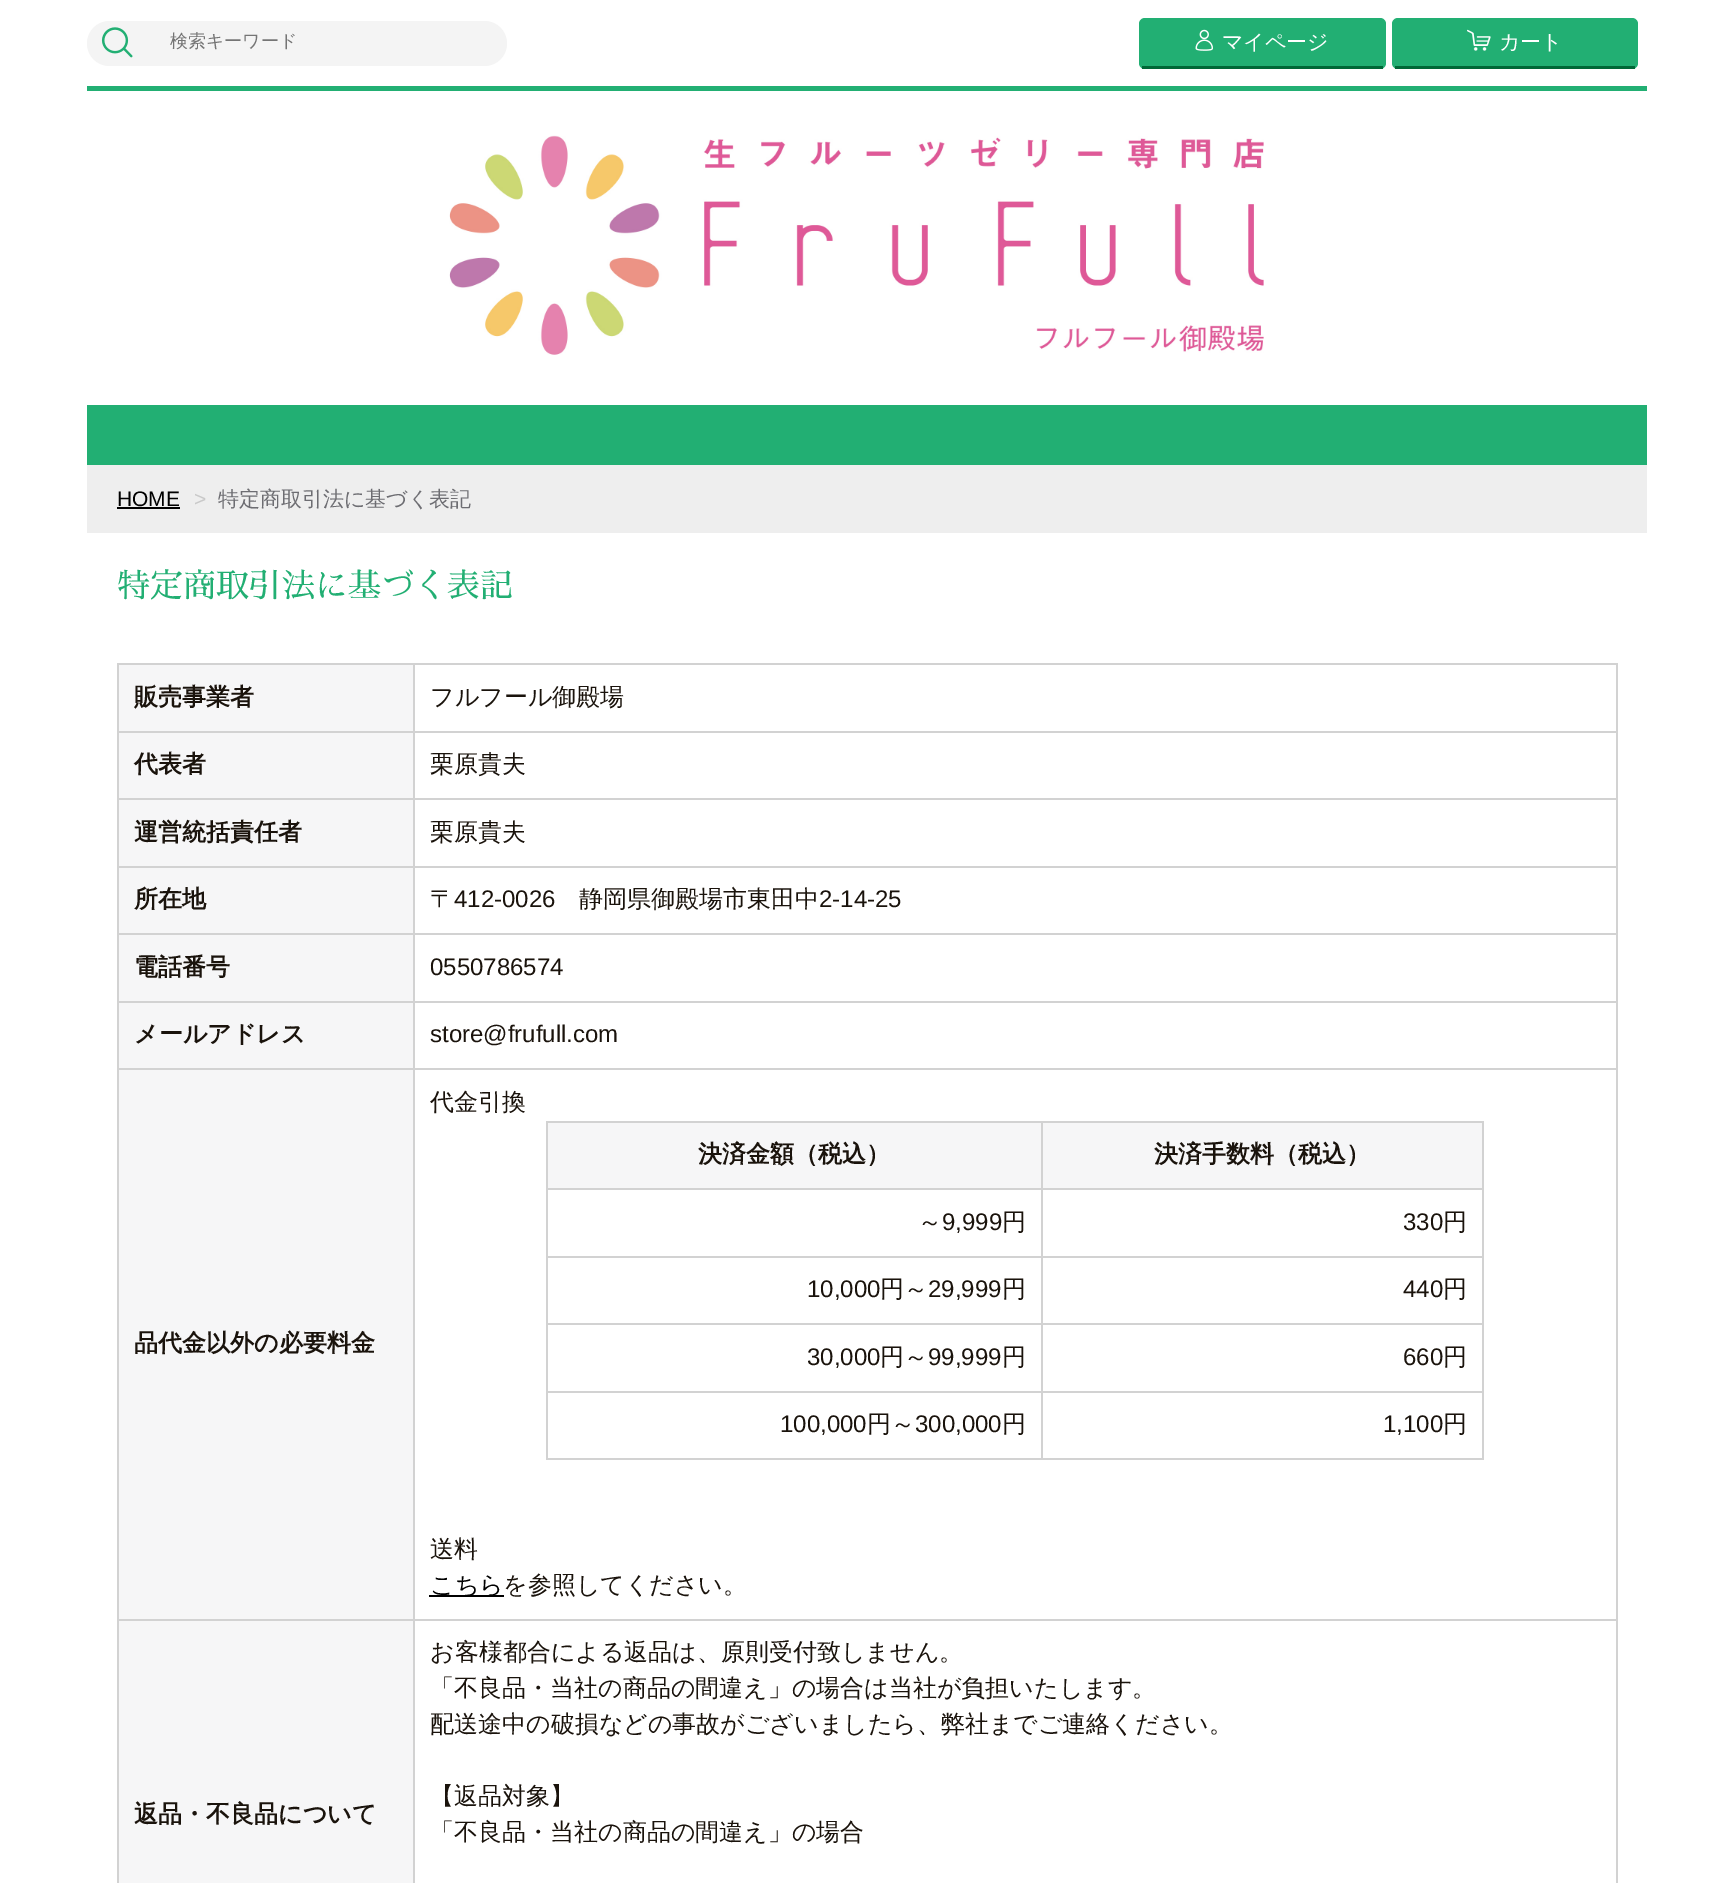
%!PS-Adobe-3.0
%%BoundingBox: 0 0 1734 1883
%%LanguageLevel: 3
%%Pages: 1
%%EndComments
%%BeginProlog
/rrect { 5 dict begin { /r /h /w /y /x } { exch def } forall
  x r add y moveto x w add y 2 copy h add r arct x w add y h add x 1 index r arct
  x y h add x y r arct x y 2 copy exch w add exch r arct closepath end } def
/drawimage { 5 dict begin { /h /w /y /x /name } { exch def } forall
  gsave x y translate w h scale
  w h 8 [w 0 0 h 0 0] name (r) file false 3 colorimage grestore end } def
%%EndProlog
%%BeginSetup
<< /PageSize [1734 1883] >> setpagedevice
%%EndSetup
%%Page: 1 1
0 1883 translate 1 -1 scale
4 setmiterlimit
1 setgray
0 0 1734 1883 rectfill
0.133 0.686 0.451 setrgbcolor
87 86 1560 5 rectfill
0.957 setgray
87 21 420 45 22.5 rrect fill
(images/1.raw) 101 27 32 31 drawimage
0.133 0.686 0.451 setrgbcolor
1139 18 247 51 6 rrect fill
0 0.408 0.216 setrgbcolor
1142 66 241 3 rectfill
(images/2.raw) 1195 29 18 22 drawimage
0.133 0.686 0.451 setrgbcolor
1392 18 246 51 6 rrect fill
0 0.408 0.216 setrgbcolor
1395 66 240 3 rectfill
(images/3.raw) 1467 29 24 22 drawimage
0.133 0.686 0.451 setrgbcolor
87 405 1560 60 rectfill
(images/4.raw) 449 135 815 220 drawimage
0.933 setgray
87 465 1560 68 rectfill
0 setgray
117 507 63 2 rectfill
0.965 0.965 0.969 setrgbcolor
119 665 294 66 rectfill
0.824 setgray
413 663 1204 2 rectfill
413 731 1204 2 rectfill
413 798 1204 2 rectfill
413 866 1204 2 rectfill
413 933 1204 2 rectfill
413 1001 1204 2 rectfill
413 1068 1204 2 rectfill
413 1619 1204 2 rectfill
413 1619 2 264 rectfill
117 1619 297 2 rectfill
413 1068 2 552 rectfill
117 1068 297 2 rectfill
413 1001 2 69 rectfill
117 1001 297 2 rectfill
413 933 2 69 rectfill
117 933 297 2 rectfill
413 866 2 69 rectfill
117 866 297 2 rectfill
413 798 2 69 rectfill
117 798 297 2 rectfill
413 731 2 69 rectfill
117 731 297 2 rectfill
413 663 2 69 rectfill
117 663 297 2 rectfill
117 1619 2 264 rectfill
117 1068 2 552 rectfill
117 1001 2 69 rectfill
117 933 2 69 rectfill
117 866 2 69 rectfill
117 798 2 69 rectfill
117 731 2 69 rectfill
117 663 2 69 rectfill
1616 1619 2 264 rectfill
1616 1068 2 552 rectfill
1616 1001 2 69 rectfill
1616 933 2 69 rectfill
1616 866 2 69 rectfill
1616 798 2 69 rectfill
1616 731 2 69 rectfill
1616 663 2 69 rectfill
0.965 0.965 0.969 setrgbcolor
119 733 294 65 rectfill
119 800 294 66 rectfill
119 868 294 65 rectfill
119 935 294 66 rectfill
119 1003 294 65 rectfill
119 1070 294 549 rectfill
548 1123 493 65 rectfill
0.824 setgray
1041 1121 443 2 rectfill
1041 1188 443 2 rectfill
1041 1256 443 2 rectfill
1041 1323 443 2 rectfill
1041 1391 443 2 rectfill
1482 1391 2 69 rectfill
1041 1458 443 2 rectfill
1041 1391 2 69 rectfill
546 1391 497 2 rectfill
1041 1323 2 69 rectfill
546 1323 497 2 rectfill
1041 1256 2 69 rectfill
546 1256 497 2 rectfill
1041 1188 2 69 rectfill
546 1188 497 2 rectfill
1041 1121 2 69 rectfill
546 1121 497 2 rectfill
546 1458 497 2 rectfill
546 1391 2 69 rectfill
546 1323 2 69 rectfill
546 1256 2 69 rectfill
546 1188 2 69 rectfill
546 1121 2 69 rectfill
0.965 0.965 0.969 setrgbcolor
1043 1123 439 65 rectfill
0.824 setgray
1482 1323 2 69 rectfill
1482 1256 2 69 rectfill
1482 1188 2 69 rectfill
1482 1121 2 69 rectfill
0 setgray
429 1595 75 2 rectfill
0.965 0.965 0.969 setrgbcolor
119 1621 294 262 rectfill
/WenQuanYiZenHei-Medium [18 0 0 -18 0 0] selectfont
0.459 setgray
170 47 moveto (検索キーワード) show
/WenQuanYiZenHei-Medium [21 0 0 -21 0 0] selectfont
1 setgray
1222 49 moveto (マイページ) show
1499 49 moveto (カート) show
/LiberationSans-Regular [21 0 0 -21 0 0] selectfont
0 setgray
117 506 moveto (HOME) show
0.788 setgray
194 506 moveto (>) show
/WenQuanYiZenHei-Medium [21 0 0 -21 0 0] selectfont
0.427 0.427 0.447 setrgbcolor
218 506 moveto (特定商取引法に基づく表記) show
/SawarabiMincho-Regular [33 0 0 -33 0 0] selectfont
0.133 0.686 0.451 setrgbcolor
117 597 moveto (特定商取引法に基づく表記) show
/WenQuanYiZenHei-Bold [24 0 0 -24 0 0] selectfont
0.102 0.075 0.047 setrgbcolor
134 705 moveto (販売事業者) show
/WenQuanYiZenHei-Medium [24 0 0 -24 0 0] selectfont
430 705 moveto (フルフール御殿場) show
/WenQuanYiZenHei-Bold [24 0 0 -24 0 0] selectfont
134 772 moveto (代表者) show
/WenQuanYiZenHei-Medium [24 0 0 -24 0 0] selectfont
430 772 moveto (栗原貴夫) show
/WenQuanYiZenHei-Bold [24 0 0 -24 0 0] selectfont
134 840 moveto (運営統括責任者) show
/WenQuanYiZenHei-Medium [24 0 0 -24 0 0] selectfont
430 840 moveto (栗原貴夫) show
/WenQuanYiZenHei-Bold [24 0 0 -24 0 0] selectfont
134 907 moveto (所在地) show
/WenQuanYiZenHei-Medium [24 0 0 -24 0 0] selectfont
430 907 moveto (〒) show
/LiberationSans-Regular [24 0 0 -24 0 0] selectfont
454 907 moveto (412-0026) show
/WenQuanYiZenHei-Medium [24 0 0 -24 0 0] selectfont
579 907 moveto (静岡県御殿場市東田中) show
/LiberationSans-Regular [24 0 0 -24 0 0] selectfont
819 907 moveto (2-14-25) show
/WenQuanYiZenHei-Bold [24 0 0 -24 0 0] selectfont
134 975 moveto (電話番号) show
/LiberationSans-Regular [24 0 0 -24 0 0] selectfont
430 975 moveto (0550786574) show
/WenQuanYiZenHei-Bold [24 0 0 -24 0 0] selectfont
134 1042 moveto (メールアドレス) show
/LiberationSans-Regular [24 0 0 -24 0 0] selectfont
430 1042 moveto (store@frufull.com) show
/WenQuanYiZenHei-Bold [24 0 0 -24 0 0] selectfont
134 1351 moveto (品代金以外の必要料金) show
/WenQuanYiZenHei-Medium [24 0 0 -24 0 0] selectfont
430 1110 moveto (代金引換) show
/WenQuanYiZenHei-Bold [24 0 0 -24 0 0] selectfont
698 1162 moveto (決済金額（税込）) show
1154 1162 moveto (決済手数料（税込）) show
/WenQuanYiZenHei-Medium [24 0 0 -24 0 0] selectfont
918 1230 moveto (～) show
/LiberationSans-Regular [24 0 0 -24 0 0] selectfont
942 1230 moveto (9,999) show
/WenQuanYiZenHei-Medium [24 0 0 -24 0 0] selectfont
1002 1230 moveto (円) show
/LiberationSans-Regular [24 0 0 -24 0 0] selectfont
1403 1230 moveto (330) show
/WenQuanYiZenHei-Medium [24 0 0 -24 0 0] selectfont
1443 1230 moveto (円) show
/LiberationSans-Regular [24 0 0 -24 0 0] selectfont
807 1297 moveto (10,000) show
/WenQuanYiZenHei-Medium [24 0 0 -24 0 0] selectfont
880 1297 moveto (円～) show
/LiberationSans-Regular [24 0 0 -24 0 0] selectfont
928 1297 moveto (29,999) show
/WenQuanYiZenHei-Medium [24 0 0 -24 0 0] selectfont
1002 1297 moveto (円) show
/LiberationSans-Regular [24 0 0 -24 0 0] selectfont
1403 1297 moveto (440) show
/WenQuanYiZenHei-Medium [24 0 0 -24 0 0] selectfont
1443 1297 moveto (円) show
/LiberationSans-Regular [24 0 0 -24 0 0] selectfont
807 1365 moveto (30,000) show
/WenQuanYiZenHei-Medium [24 0 0 -24 0 0] selectfont
880 1365 moveto (円～) show
/LiberationSans-Regular [24 0 0 -24 0 0] selectfont
928 1365 moveto (99,999) show
/WenQuanYiZenHei-Medium [24 0 0 -24 0 0] selectfont
1002 1365 moveto (円) show
/LiberationSans-Regular [24 0 0 -24 0 0] selectfont
1403 1365 moveto (660) show
/WenQuanYiZenHei-Medium [24 0 0 -24 0 0] selectfont
1443 1365 moveto (円) show
/LiberationSans-Regular [24 0 0 -24 0 0] selectfont
780 1432 moveto (100,000) show
/WenQuanYiZenHei-Medium [24 0 0 -24 0 0] selectfont
867 1432 moveto (円～) show
/LiberationSans-Regular [24 0 0 -24 0 0] selectfont
915 1432 moveto (300,000) show
/WenQuanYiZenHei-Medium [24 0 0 -24 0 0] selectfont
1002 1432 moveto (円) show
/LiberationSans-Regular [24 0 0 -24 0 0] selectfont
1383 1432 moveto (1,100) show
/WenQuanYiZenHei-Medium [24 0 0 -24 0 0] selectfont
1443 1432 moveto (円) show
430 1557 moveto (送料) show
0 setgray
430 1593 moveto (こちら) show
0.102 0.075 0.047 setrgbcolor
503 1593 moveto (を参照してください。) show
/WenQuanYiZenHei-Bold [24 0 0 -24 0 0] selectfont
134 1822 moveto (返品・不良品について) show
/WenQuanYiZenHei-Medium [24 0 0 -24 0 0] selectfont
430 1660 moveto (お客様都合による返品は、原則受付致しません。) show
430 1696 moveto (「不良品・当社の商品の間違え」の場合は当社が負担いたします。) show
430 1732 moveto (配送途中の破損などの事故がございましたら、弊社までご連絡ください。) show
430 1804 moveto (【返品対象】) show
430 1840 moveto (「不良品・当社の商品の間違え」の場合) show
showpage
%%EOF
